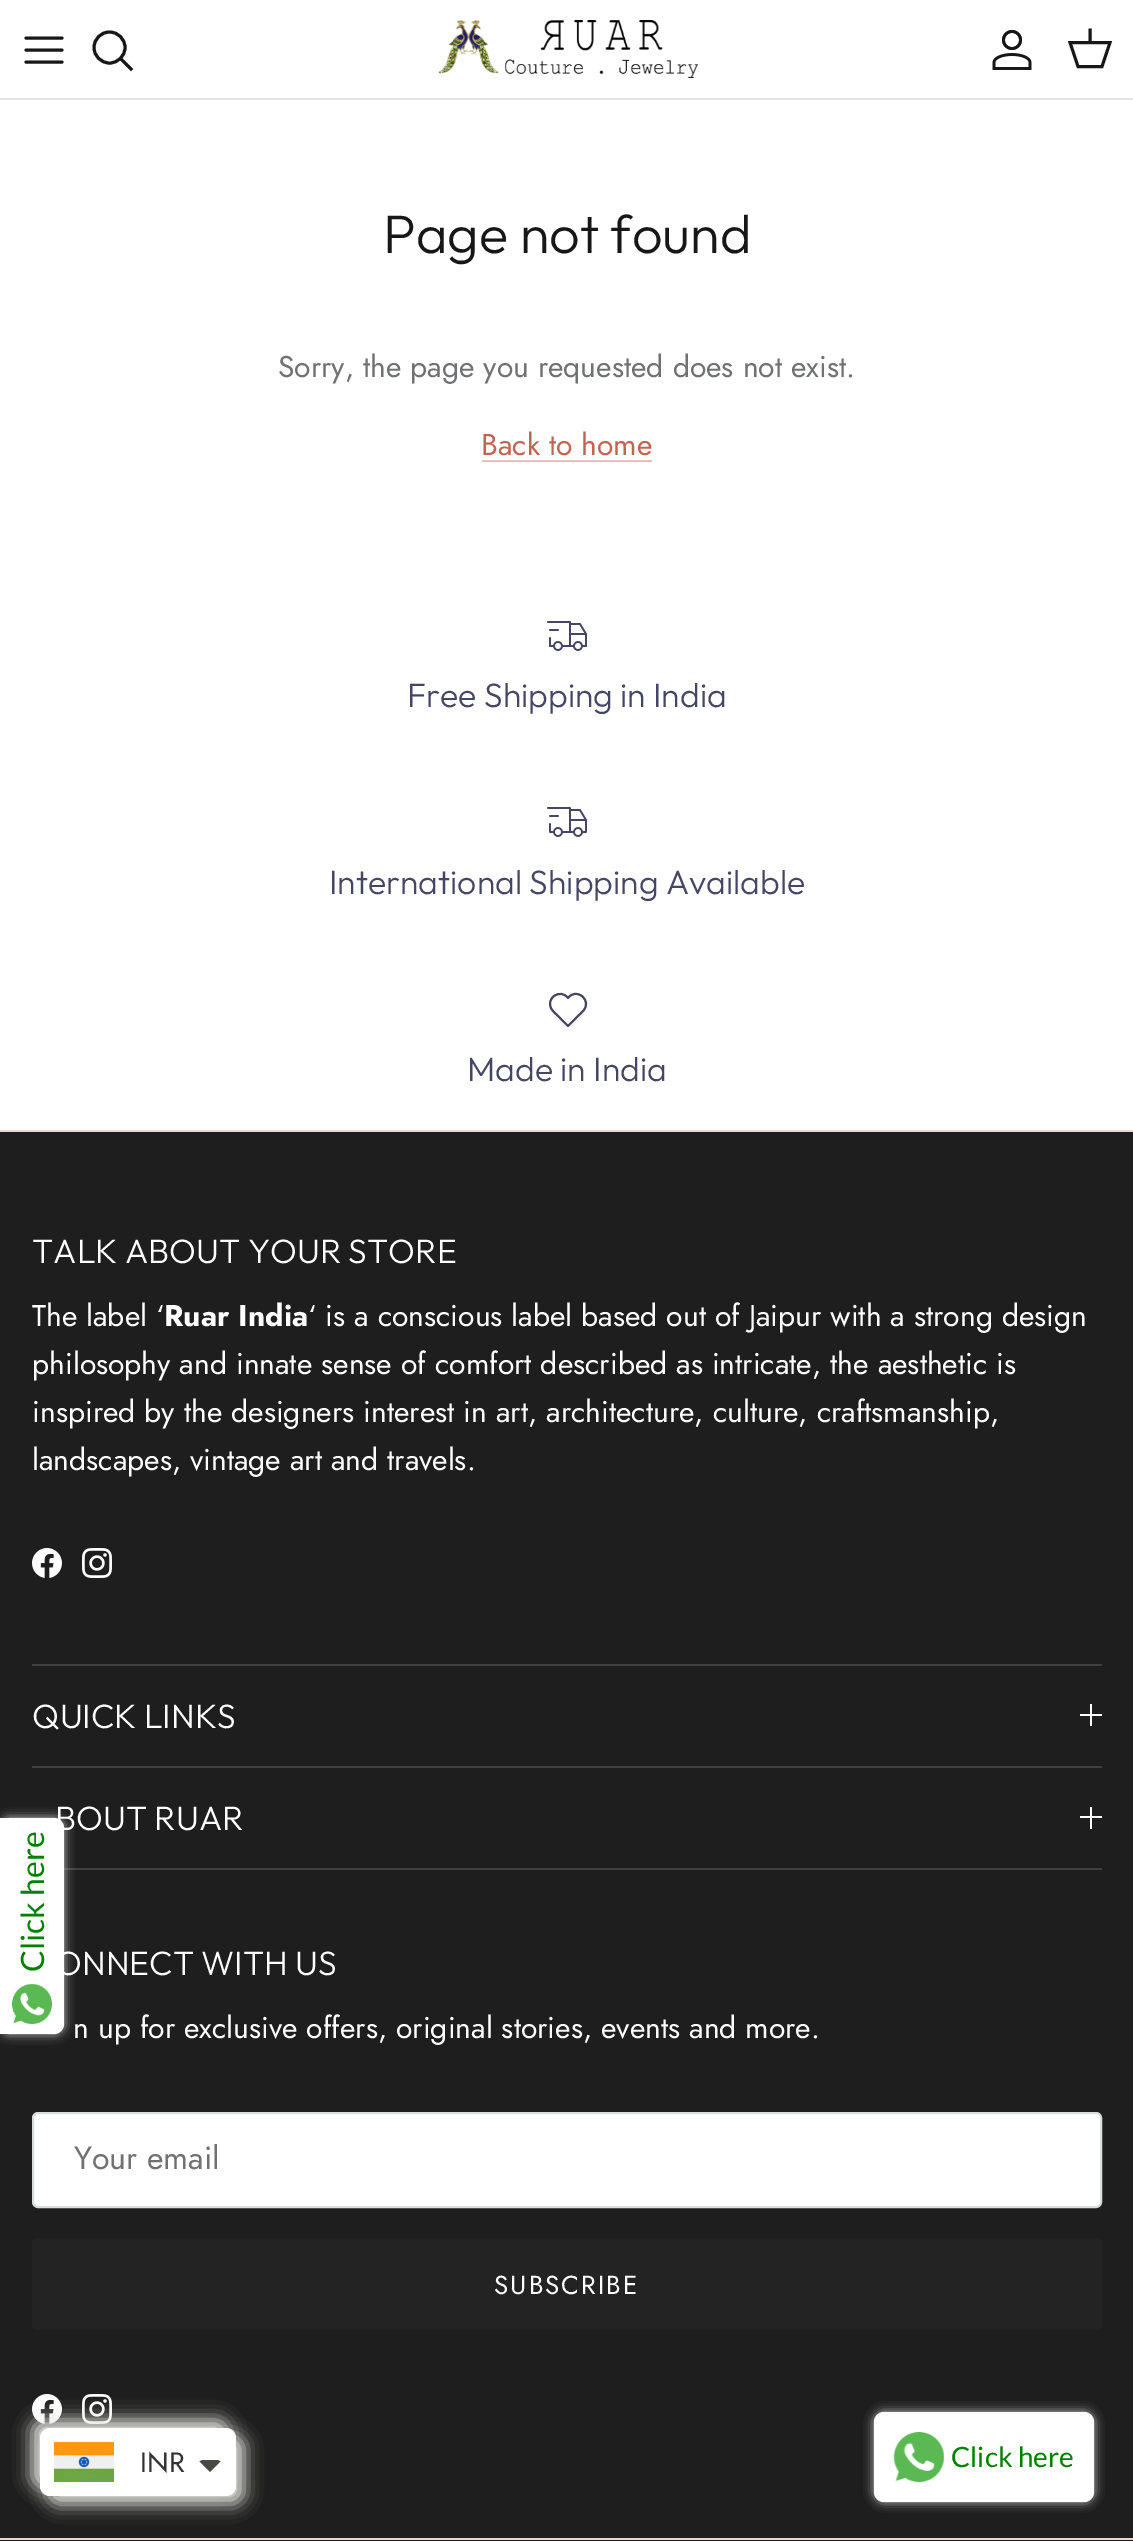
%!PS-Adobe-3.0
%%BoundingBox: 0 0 1133 2541
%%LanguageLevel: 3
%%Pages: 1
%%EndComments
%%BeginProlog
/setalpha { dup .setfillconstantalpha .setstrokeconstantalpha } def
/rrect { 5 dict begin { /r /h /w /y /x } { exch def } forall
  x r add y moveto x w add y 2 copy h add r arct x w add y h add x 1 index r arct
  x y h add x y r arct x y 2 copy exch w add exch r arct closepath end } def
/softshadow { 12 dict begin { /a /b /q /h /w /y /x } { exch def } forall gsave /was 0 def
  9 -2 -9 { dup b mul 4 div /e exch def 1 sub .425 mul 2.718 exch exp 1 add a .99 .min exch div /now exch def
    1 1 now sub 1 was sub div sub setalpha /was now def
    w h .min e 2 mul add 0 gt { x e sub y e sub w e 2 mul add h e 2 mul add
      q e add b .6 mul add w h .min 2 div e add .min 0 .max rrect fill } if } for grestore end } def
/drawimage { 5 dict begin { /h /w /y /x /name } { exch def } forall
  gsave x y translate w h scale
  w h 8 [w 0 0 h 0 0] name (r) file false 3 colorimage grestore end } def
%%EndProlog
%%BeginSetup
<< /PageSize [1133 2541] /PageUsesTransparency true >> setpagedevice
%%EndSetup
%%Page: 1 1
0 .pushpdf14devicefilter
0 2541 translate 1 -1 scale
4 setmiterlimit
1 setgray
0 0 1133 2541 rectfill
0.875 0.89 0.91 setrgbcolor
0 98 1133 2 rectfill
0.09 setgray
3 setlinewidth
1 setlinecap
1 setlinejoin
newpath 26 50 moveto 62 50 lineto 26 38 moveto 62 38 lineto 26 62 moveto 62 62 lineto stroke
0 setlinecap
0 setlinejoin
newpath 109.5 47.5 15.5 0 360 arc closepath stroke
2 setlinecap
newpath 122 60 moveto 131 69 lineto stroke
(images/1.raw) 438 20 260 58 drawimage
(images/2.raw) 992 30 40 40 drawimage
0 setlinecap
newpath 1070 42.5 moveto 1110 42.5 lineto 1102 66.5 lineto 1078 66.5 lineto closepath stroke
2 setlinecap
newpath 1090 42 moveto 1090 30 lineto stroke
0.902 0.757 0.729 setrgbcolor
482 460 170 2 rectfill
(images/3.raw) 547 621 40 30 drawimage
(images/3.raw) 547 807 40 30 drawimage
0.271 0.271 0.392 setrgbcolor
2 setlinewidth
1 setlinecap
1 setlinejoin
newpath 583 1011 moveto 568 1026 lineto 558 1016 lineto 556 1014 553 1011.5 551.5 1009 curveto 545 998 560.5 988 568 998 curveto 576.5 986.5 593 1001 583 1011 curveto stroke
0.118 setgray
0 1132 1133 1409 rectfill
0.925 0.839 0.82 setrgbcolor
0 1130 1133 2 rectfill
(images/4.raw) 32 1548 30 30 drawimage
(images/5.raw) 82 1548 30 30 drawimage
0.251 setgray
32 1664 1070 2 rectfill
1 setgray
1090 1704 2 22 rectfill
1080 1714 22 2 rectfill
0.251 setgray
32 1766 1070 2 rectfill
64 1868 1038 2 rectfill
1 setgray
1090 1807 2 22 rectfill
1080 1816 22 2 rectfill
33 2113 1068 94 5 rrect gsave fill grestore
0.859 0.863 0.863 setrgbcolor
0 setlinecap
0 setlinejoin
stroke
0.137 setgray
32 2238 1070 92 6 rrect fill
(images/4.raw) 32 2394 30 30 drawimage
(images/5.raw) 82 2394 30 30 drawimage
0.925 0.839 0.82 setrgbcolor
0 2538 1133 2 rectfill
0.827 setgray
0 1818 64 216 10 5 1 softshadow
1 setgray
newpath 0 1818 moveto 54 1818 lineto 59.5 1818 64 1822.5 64 1828 curveto 64 2024 lineto 64 2029.5 59.5 2034 54 2034 curveto 0 2034 lineto closepath fill
(images/6.raw) 12 1984 40 40 drawimage
0.91 0.91 0.886 setrgbcolor
32 2420 196 68 10 9 1 softshadow
48 2436 196 68 10 9 1 softshadow
1 setgray
40 2428 196 68 10 rrect fill
(images/7.raw) 54 2442 60 40 drawimage
0.278 0.286 0.259 setrgbcolor
newpath 204 2460 moveto 202 2460 201 2460.5 199.5 2461.5 curveto 210 2472 lineto 220.5 2461.5 lineto 219 2460.5 218 2460 216 2460 curveto closepath fill
0.827 setgray
874 2412 220 90 10 5 1 softshadow
1 setgray
874 2412 220 90 10 rrect fill
(images/8.raw) 893 2432 51 50 drawimage
/Outfit-Light [54 0 0 -54 0 0] selectfont
0.09 setgray
383 253 moveto (Page not found) show
/Jost-Regular [30 0 0 -30 0 0] selectfont
0.439 0.443 0.451 setrgbcolor
278 377 moveto (Sorry, the page you requested does not exist.) show
0.757 0.392 0.322 setrgbcolor
481 455 moveto (Back to home) show
/Outfit-Light [33.8 0 0 -33.8 0 0] selectfont
0.271 0.271 0.392 setrgbcolor
407 707 moveto (Free Shipping in India) show
329 894 moveto (International Shipping Available) show
467 1081 moveto (Made in India) show
1 setgray
32 1263 moveto (TALK ABOUT YOUR STORE) show
/Jost-Regular [30 0 0 -30 0 0] selectfont
32 1326 moveto (The label ‘) show
/Jost-Bold [30 0 0 -30 0 0] selectfont
164 1326 moveto (Ruar India) show
/Jost-Regular [30 0 0 -30 0 0] selectfont
308 1326 moveto (‘ is a conscious label based out of Jaipur with a strong design) show
32 1374 moveto (philosophy and innate sense of comfort described as intricate, the aesthetic is) show
32 1422 moveto (inspired by the designers interest in art, architecture, culture, craftsmanship,) show
32 1470 moveto (landscapes, vintage art and travels.) show
/Outfit-Light [33.8 0 0 -33.8 0 0] selectfont
32 1728 moveto (QUICK LINKS) show
55 1830 moveto (BOUT RUAR) show
55 1975 moveto (ONNECT WITH US) show
/Jost-Regular [30 0 0 -30 0 0] selectfont
73 2038 moveto (n up for exclusive offers, original stories, events and more.) show
/Jost-Regular [32 0 0 -32 0 0] selectfont
0.439 0.443 0.451 setrgbcolor
74 2169 moveto (Your email) show
/Jost-Regular [26 0 0 -26 0 0] selectfont
1 setgray
494 2294 moveto 2 0 (SUBSCRIBE) ashow
/Lato-Regular [32 0 0 -32 0 0] selectfont
0 0.502 0 setrgbcolor
gsave 44 1972 translate -90 rotate 0 0 moveto (Click here) show grestore
/Jost-Regular [28 0 0 -28 0 0] selectfont
0.2 setgray
140 2472 moveto (INR) show
/Lato-Regular [28 0 0 -28 0 0] selectfont
0 0.502 0 setrgbcolor
951 2467 moveto (Click here) show
.poppdf14devicefilter showpage
%%EOF
